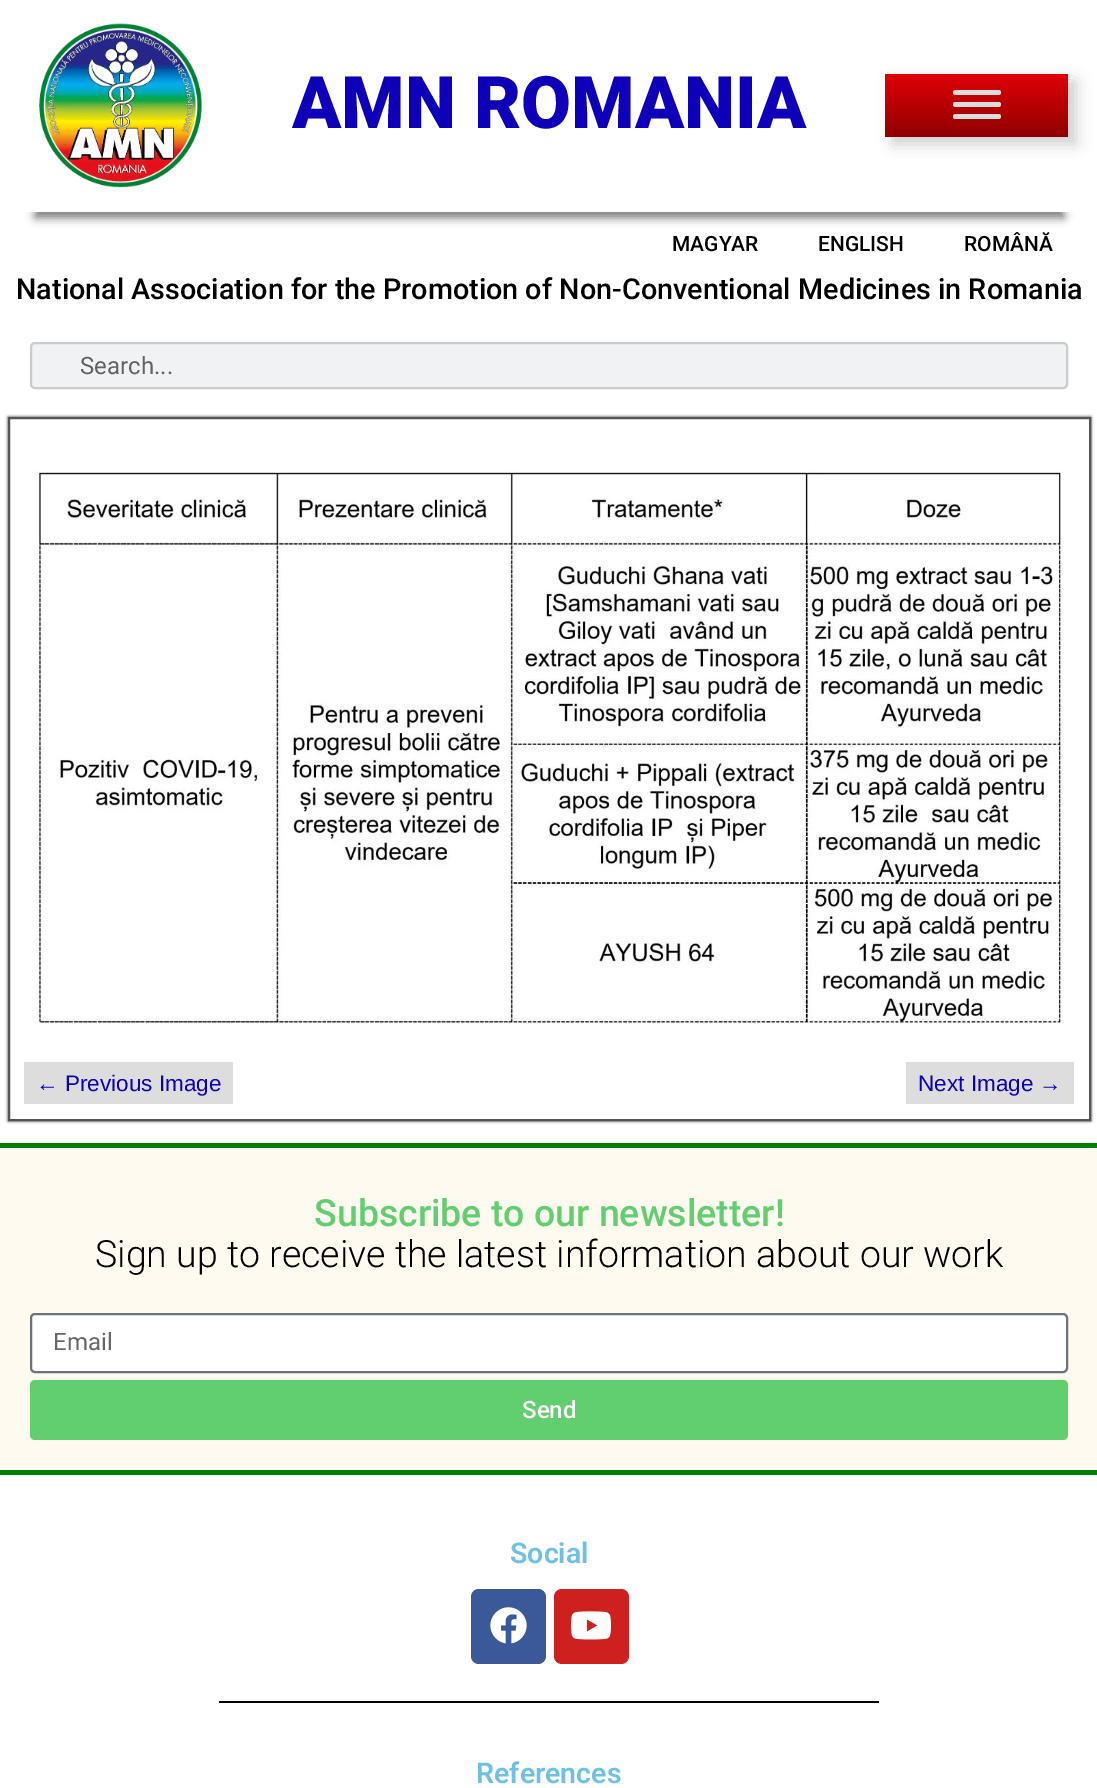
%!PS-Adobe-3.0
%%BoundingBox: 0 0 1097 1788
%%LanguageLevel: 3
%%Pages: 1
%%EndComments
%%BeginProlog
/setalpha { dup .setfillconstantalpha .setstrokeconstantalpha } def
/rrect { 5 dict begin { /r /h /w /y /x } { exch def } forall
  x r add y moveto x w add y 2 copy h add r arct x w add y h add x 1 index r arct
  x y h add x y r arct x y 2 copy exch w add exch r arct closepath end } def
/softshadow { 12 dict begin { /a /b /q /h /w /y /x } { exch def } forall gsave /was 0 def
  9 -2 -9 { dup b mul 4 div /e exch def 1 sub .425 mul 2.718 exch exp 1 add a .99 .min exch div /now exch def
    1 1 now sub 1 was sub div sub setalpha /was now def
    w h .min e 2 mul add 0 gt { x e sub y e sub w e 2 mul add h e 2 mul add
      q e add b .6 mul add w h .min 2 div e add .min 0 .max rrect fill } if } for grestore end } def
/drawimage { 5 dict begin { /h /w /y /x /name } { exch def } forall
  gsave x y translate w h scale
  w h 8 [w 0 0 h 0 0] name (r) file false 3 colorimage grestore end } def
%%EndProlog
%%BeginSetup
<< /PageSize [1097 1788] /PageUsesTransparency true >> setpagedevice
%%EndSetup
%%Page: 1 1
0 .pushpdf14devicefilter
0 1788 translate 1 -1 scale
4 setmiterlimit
1 setgray
0 0 1097 1788 rectfill
gsave
newpath 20 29 moveto 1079 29 lineto 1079 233 lineto 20 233 lineto closepath 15 -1 moveto 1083 -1 lineto 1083 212 lineto 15 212 lineto closepath eoclip newpath
0 setgray
35 44 1029 174 0 4.5 0.5 softshadow
grestore
(images/1.raw) 39 23 164 165 drawimage
0.8 setgray
893 81 183 63 0 7.5 1 softshadow
gsave 885 74 183 63 3 rrect clip newpath
<< /ShadingType 2 /ColorSpace /DeviceRGB /Coords [977 73 977 137] /Extend [true true] /Function << /FunctionType 2 /Domain [0 1] /C0 [0.882 0 0.027] /C1 [0.561 0 0] /N 1 >> >> shfill grestore
0.867 setgray
953 90 48 5 2.5 rrect fill
953 102 48 5 2.5 rrect fill
953 114 48 5 2.5 rrect fill
0.78 setalpha
1 setgray
28 211 1043 1 rectfill
1 setalpha
0.945 0.949 0.953 setrgbcolor
31 343 1036 45 4 rrect gsave fill grestore
0.8 setgray
2 setlinewidth
stroke
0.2 setgray
8 417 1083 704 0 1.5 1 softshadow
1 setgray
newpath 9 418 moveto 1090 418 lineto 1090 1120 lineto 9 1120 lineto closepath gsave fill grestore
0.333 setgray
stroke
(images/2.raw) 35 471 1028 553 drawimage
0.867 setgray
24 1062 209 42 rectfill
906 1062 168 42 rectfill
0.996 0.98 0.937 setrgbcolor
0 1148 1097 322 rectfill
0 0.502 0 setrgbcolor
0 1143 1097 5 rectfill
0 1470 1097 5 rectfill
1 setgray
31 1314 1036 58 4 rrect gsave fill grestore
0.412 0.447 0.49 setrgbcolor
stroke
0.38 0.808 0.439 setrgbcolor
30 1380 1038 60 5 rrect fill
0.231 0.349 0.596 setrgbcolor
471 1589 75 75 8 rrect fill
(images/3.raw) 490 1607 37 37 drawimage
0.804 0.125 0.122 setrgbcolor
554 1589 75 75 8 rrect fill
(images/4.raw) 571 1611 40 29 drawimage
0 setgray
219 1701 660 2 rectfill
/Roboto-Black [72.5 0 0 -72.5 0 0] selectfont
0.051 0 0.722 setrgbcolor
292 128 moveto (AMN ROMANIA) show
/Roboto-Medium [21 0 0 -21 0 0] selectfont
0 setgray
672 251 moveto (MAGYAR) show
818 251 moveto (ENGLISH) show
964 251 moveto (ROMÂNĂ) show
/Roboto-Medium [28.8 0 0 -28.8 0 0] selectfont
16 299 moveto (National Association for the Promotion of Non-Conventional Medicines in Romania) show
/Roboto-Regular [24 0 0 -24 0 0] selectfont
0.376 0.38 0.38 setrgbcolor
80 374 moveto (Search...) show
/LiberationSans-Regular [22.5 0 0 -22.5 0 0] selectfont
0.051 0 0.722 setrgbcolor
36 1091 moveto (← Previous Image) show
918 1091 moveto (Next Image →) show
/Roboto-Medium [37.5 0 0 -37.5 0 0] selectfont
0.38 0.808 0.439 setrgbcolor
314 1226 moveto (Subscribe to our newsletter!) show
/Roboto-Light [37.5 0 0 -37.5 0 0] selectfont
0 setgray
95 1267 moveto (Sign up to receive the latest information about our work) show
/Roboto-Regular [24 0 0 -24 0 0] selectfont
0.4 setgray
53 1350 moveto (Email) show
/Roboto-Medium [24 0 0 -24 0 0] selectfont
1 setgray
522 1418 moveto (Send) show
/Roboto-SemiBold [28.5 0 0 -28.5 0 0] selectfont
0.431 0.757 0.894 setrgbcolor
510 1563 moveto (Social) show
476 1783 moveto (References) show
.poppdf14devicefilter showpage
%%EOF
